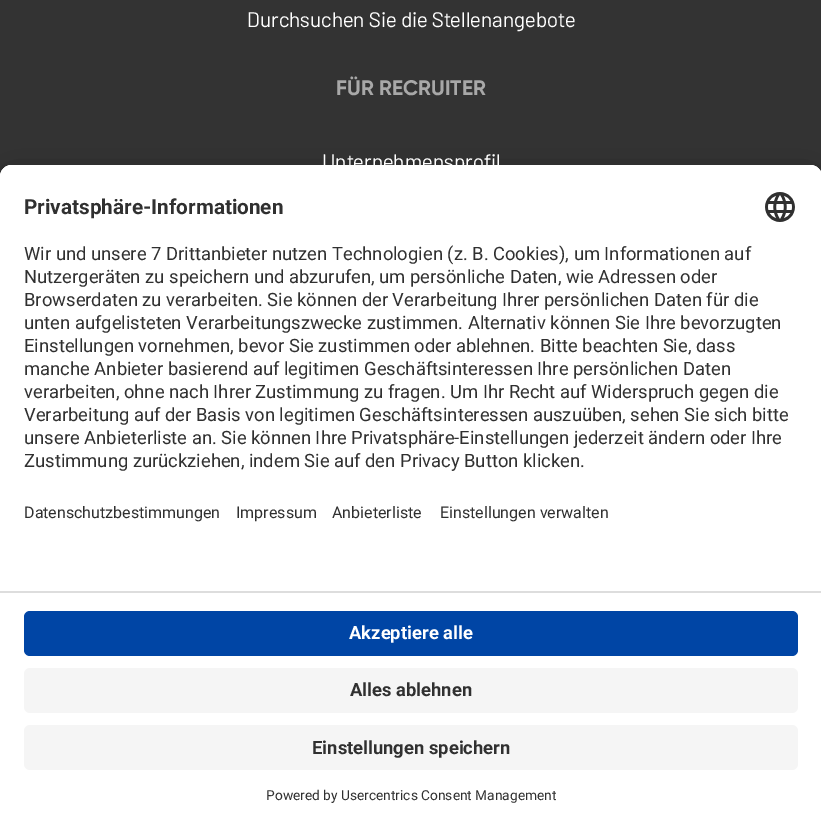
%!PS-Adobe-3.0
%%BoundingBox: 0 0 821 828
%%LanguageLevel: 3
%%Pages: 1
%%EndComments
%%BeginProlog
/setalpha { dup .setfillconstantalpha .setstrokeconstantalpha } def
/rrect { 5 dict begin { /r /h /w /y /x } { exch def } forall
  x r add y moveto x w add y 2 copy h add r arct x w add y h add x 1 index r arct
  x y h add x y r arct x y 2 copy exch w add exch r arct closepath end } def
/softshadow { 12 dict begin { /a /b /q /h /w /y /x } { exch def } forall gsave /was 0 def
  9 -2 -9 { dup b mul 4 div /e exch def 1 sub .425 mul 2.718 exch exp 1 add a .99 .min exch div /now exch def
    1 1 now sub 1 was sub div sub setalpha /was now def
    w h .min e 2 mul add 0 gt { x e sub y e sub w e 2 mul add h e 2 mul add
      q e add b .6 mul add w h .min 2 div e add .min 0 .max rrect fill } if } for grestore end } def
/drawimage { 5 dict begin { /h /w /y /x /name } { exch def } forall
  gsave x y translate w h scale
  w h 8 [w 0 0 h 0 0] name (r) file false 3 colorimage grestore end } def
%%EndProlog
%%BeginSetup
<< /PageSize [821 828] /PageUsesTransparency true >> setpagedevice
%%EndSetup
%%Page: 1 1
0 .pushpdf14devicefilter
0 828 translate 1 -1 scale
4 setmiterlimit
0.2 setgray
0 0 821 828 rectfill
0 setgray
0 195 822 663 12 21 0.3 softshadow
0 173 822 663 12 19.5 0.22 softshadow
1 setgray
newpath 12 165 moveto 810 165 lineto 816.5 165 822 170.5 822 177 curveto 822 828 lineto 0 828 lineto 0 177 lineto 0 170.5 5.5 165 12 165 curveto closepath fill
newpath 12 165 moveto 810 165 lineto 816.5 165 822 170.5 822 177 curveto 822 591 lineto 0 591 lineto 0 177 lineto 0 170.5 5.5 165 12 165 curveto closepath fill
newpath 12 165 moveto 810 165 lineto 816.5 165 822 170.5 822 177 curveto 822 572 lineto 0 572 lineto 0 177 lineto 0 170.5 5.5 165 12 165 curveto closepath fill
(images/1.raw) 765 192 30 30 drawimage
0.867 setgray
0 591 821 2 rectfill
0 0.271 0.647 setrgbcolor
24 611 774 45 6 rrect fill
0.961 setgray
24 668 774 45 6 rrect fill
24 725 774 45 6 rrect fill
/Barlow-Regular [21 0 0 -21 0 0] selectfont
1 setgray
247 27 moveto (Durchsuchen Sie die Stellenangebote) show
/Gilroy-Regular [21 0 0 -21 0 0] selectfont
0.659 setgray
336 95 moveto (FÜR RECRUITER) show
/Barlow-Regular [21 0 0 -21 0 0] selectfont
1 setgray
322 169 moveto (Unternehmensprofil) show
/Roboto-Bold [20.75 0 0 -20.75 0 0] selectfont
0.188 setgray
24 214 moveto (Privatsphäre-Informationen) show
/Roboto-Regular [18.4 0 0 -18.4 0 0] selectfont
24 260 moveto (Wir und unsere 7 Drittanbieter nutzen Technologien \(z. B. Cookies\), um Informationen auf) show
24 283 moveto (Nutzergeräten zu speichern und abzurufen, um persönliche Daten, wie Adressen oder) show
24 306 moveto (Browserdaten zu verarbeiten. Sie können der Verarbeitung Ihrer persönlichen Daten für die) show
24 329 moveto (unten aufgelisteten Verarbeitungszwecke zustimmen. Alternativ können Sie Ihre bevorzugten) show
24 352 moveto (Einstellungen vornehmen, bevor Sie zustimmen oder ablehnen. Bitte beachten Sie, dass) show
24 375 moveto (manche Anbieter basierend auf legitimen Geschäftsinteressen Ihre persönlichen Daten) show
24 398 moveto (verarbeiten, ohne nach Ihrer Zustimmung zu fragen. Um Ihr Recht auf Widerspruch gegen die) show
24 421 moveto (Verarbeitung auf der Basis von legitimen Geschäftsinteressen auszuüben, sehen Sie sich bitte) show
24 444 moveto (unsere Anbieterliste an. Sie können Ihre Privatsphäre-Einstellungen jederzeit ändern oder Ihre) show
24 467 moveto (Zustimmung zurückziehen, indem Sie auf den Privacy Button klicken.) show
/Roboto-Regular [16 0 0 -16 0 0] selectfont
24 518 moveto (Datenschutzbestimmungen) show
236 518 moveto (Impressum) show
332 518 moveto (Anbieterliste) show
440 518 moveto (Einstellungen verwalten) show
/Roboto-Bold [18.4 0 0 -18.4 0 0] selectfont
1 setgray
349 639 moveto (Akzeptiere alle) show
0.188 setgray
350 696 moveto (Alles ablehnen) show
312 754 moveto (Einstellungen speichern) show
/Roboto-Regular [13.75 0 0 -13.75 0 0] selectfont
266 800 moveto (Powered by Usercentrics Consent Management) show
.poppdf14devicefilter showpage
%%EOF
